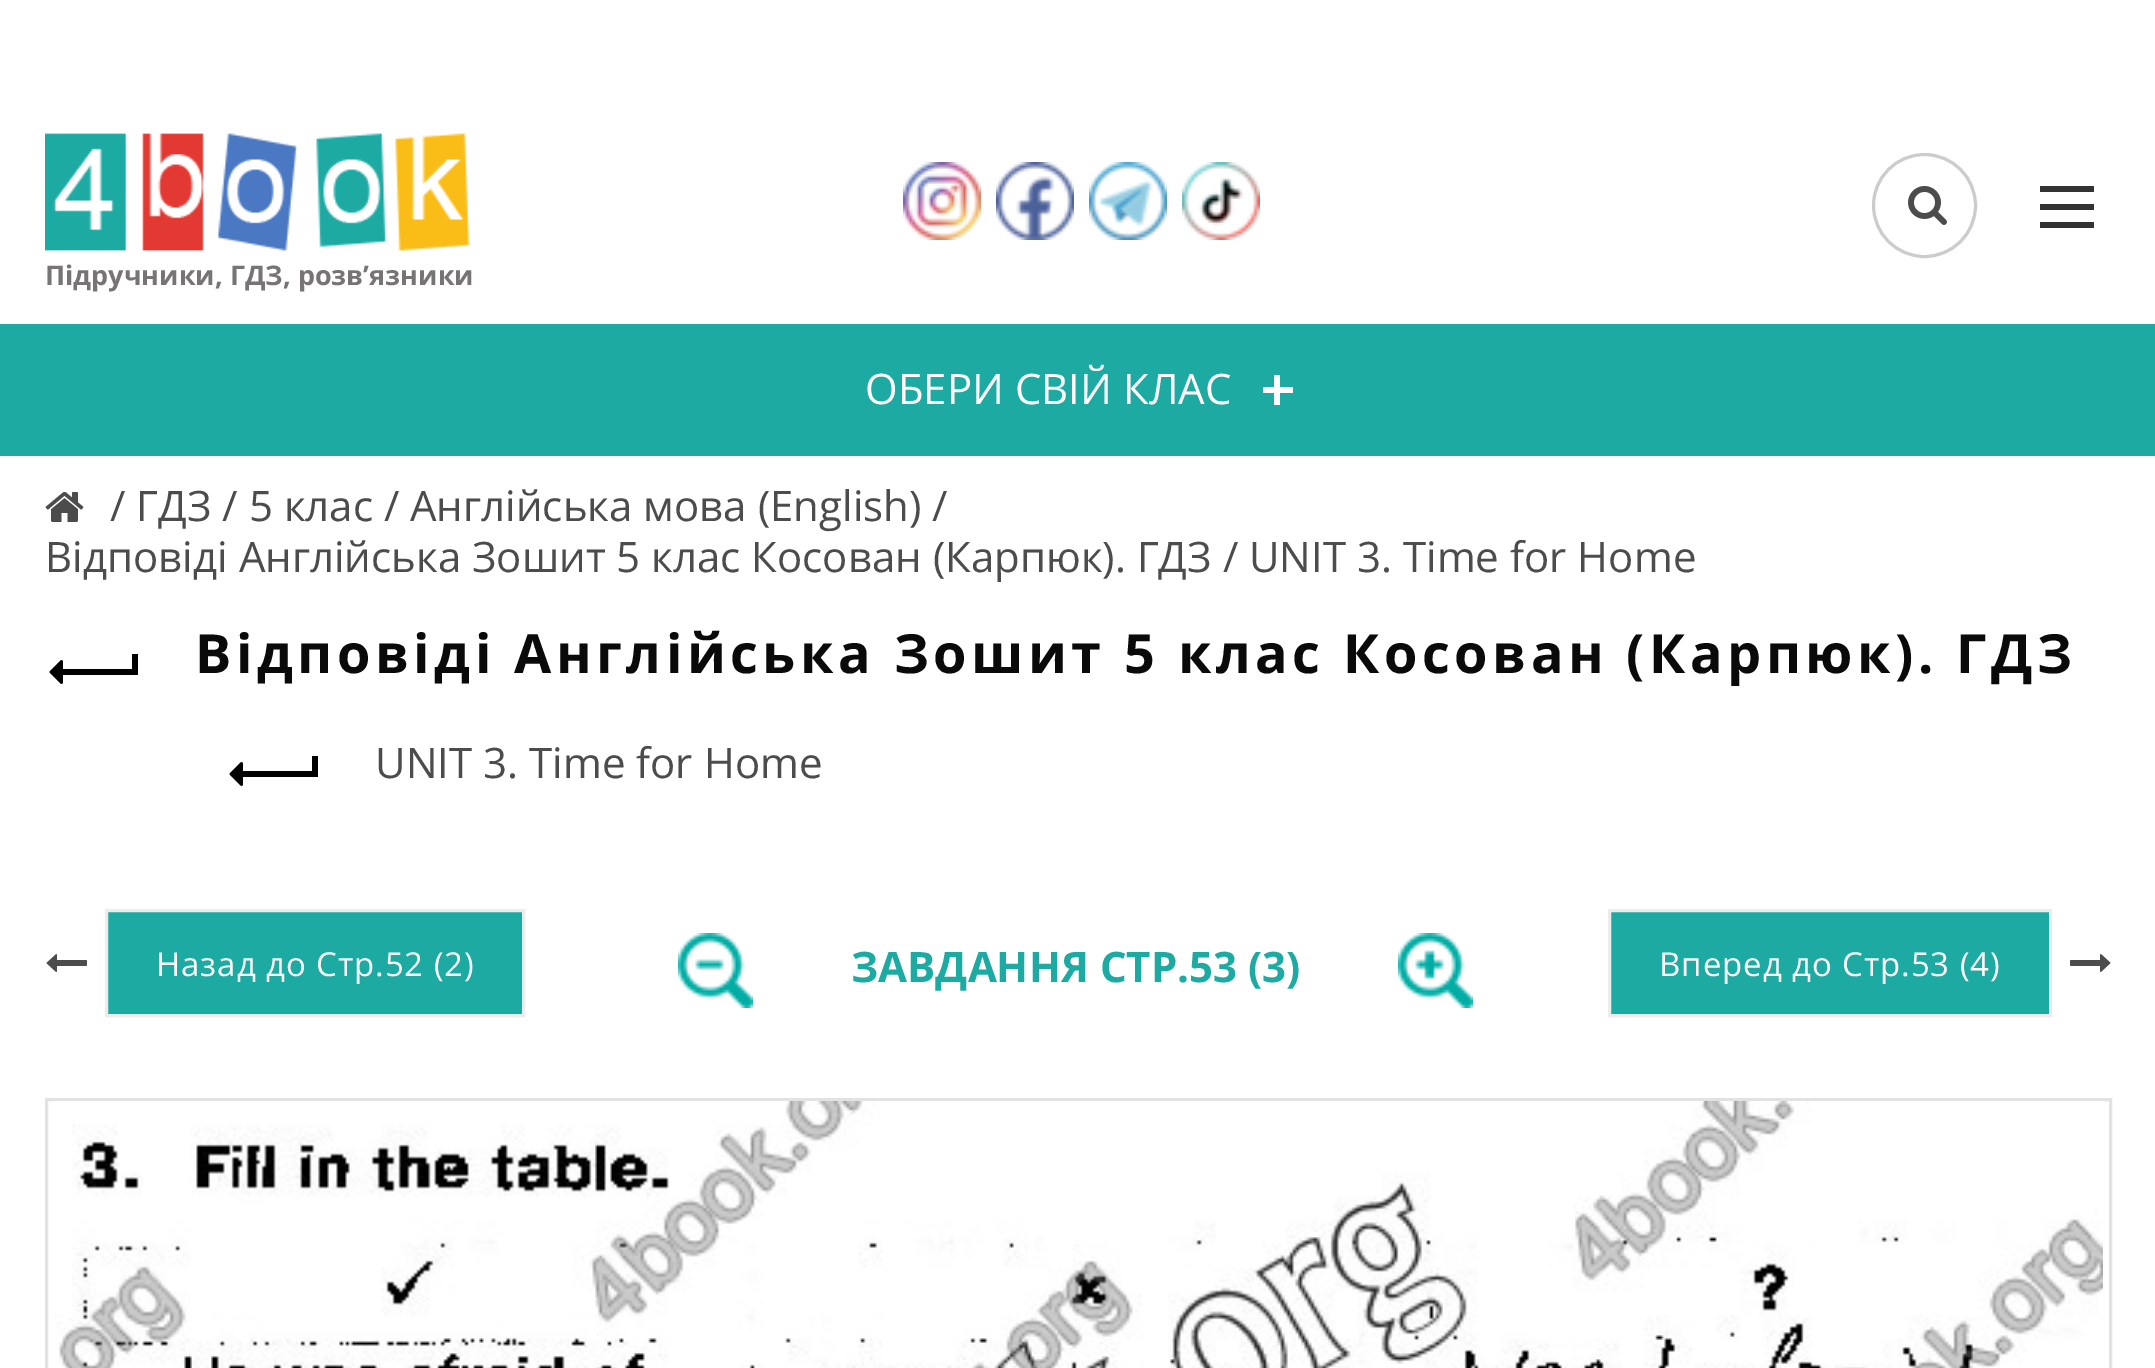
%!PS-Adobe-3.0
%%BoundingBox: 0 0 2155 1368
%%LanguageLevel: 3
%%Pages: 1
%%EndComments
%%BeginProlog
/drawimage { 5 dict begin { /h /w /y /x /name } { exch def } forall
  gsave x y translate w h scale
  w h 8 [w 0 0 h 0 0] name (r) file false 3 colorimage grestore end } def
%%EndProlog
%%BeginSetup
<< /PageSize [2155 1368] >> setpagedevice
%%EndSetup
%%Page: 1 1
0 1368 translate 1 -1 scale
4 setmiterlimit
1 setgray
0 0 2155 1368 rectfill
(images/1.raw) 903 162 78 78 drawimage
(images/2.raw) 996 162 78 78 drawimage
(images/3.raw) 1089 162 78 78 drawimage
(images/4.raw) 1182 162 78 78 drawimage
(images/5.raw) 1908 186 39 39 drawimage
0.8 setgray
3 setlinewidth
newpath 1924.5 205.5 51 0 360 arc closepath stroke
0.2 setgray
2040 204 54 6 rectfill
2040 186 54 6 rectfill
2040 222 54 6 rectfill
(images/6.raw) 45 133 425 118 drawimage
0.114 0.667 0.639 setrgbcolor
0 324 2155 132 rectfill
1 setgray
1274 375 6 30 rectfill
1263 387 30 6 rectfill
(images/7.raw) 45 491 39 31 drawimage
0 setgray
60 669 75 6 rectfill
(images/8.raw) 49 660 14 24 drawimage
132 654 6 21 rectfill
240 771 75 6 rectfill
(images/8.raw) 229 762 14 24 drawimage
312 756 6 21 rectfill
(images/9.raw) 46 954 41 18 drawimage
0.114 0.667 0.639 setrgbcolor
newpath 106.5 910.5 moveto 523.5 910.5 lineto 523.5 1015.5 lineto 106.5 1015.5 lineto closepath gsave fill grestore
0.925 setgray
stroke
(images/10.raw) 678 933 75 75 drawimage
(images/11.raw) 1398 933 75 75 drawimage
0.114 0.667 0.639 setrgbcolor
newpath 1609.5 910.5 moveto 2050.5 910.5 lineto 2050.5 1015.5 lineto 1609.5 1015.5 lineto closepath gsave fill grestore
0.925 setgray
stroke
(images/12.raw) 2070 954 41 18 drawimage
0.886 setgray
46.5 1099.5 2064 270 rectstroke
(images/13.raw) 55 1101 2048 267 drawimage
/OpenSans-Bold [27 0 0 -27 0 0] selectfont
0.463 0.455 0.455 setrgbcolor
45 285 moveto (Підручники, ГДЗ, розв’язники) show
/OpenSans-Regular [42 0 0 -42 0 0] selectfont
1 setgray
865 404 moveto (ОБЕРИ СВІЙ КЛАС) show
0.298 setgray
110 521 moveto (/ ГДЗ / 5 клас / Англійська мова \(English\) /) show
45 572 moveto (Відповіді Англійська Зошит 5 клас Косован \(Карпюк\). ГДЗ / UNIT 3. Time for Home) show
/OpenSans-Bold [54 0 0 -54 0 0] selectfont
0.039 setgray
195 673 moveto 4.5 0 (Відповіді Англійська Зошит 5 клас Косован \(Карпюк\). ГДЗ) ashow
/OpenSans-Regular [42 0 0 -42 0 0] selectfont
0.298 setgray
375 778 moveto (UNIT 3. Time for Home) show
/OpenSans-Regular [33 0 0 -33 0 0] selectfont
1 setgray
156 976 moveto 0.9 0 (Назад до Стр.52 \(2\)) ashow
/OpenSans-Bold [42 0 0 -42 0 0] selectfont
0.114 0.667 0.639 setrgbcolor
851 982 moveto (ЗАВДАННЯ СТР.53 \(3\)) show
/OpenSans-Regular [33 0 0 -33 0 0] selectfont
1 setgray
1659 976 moveto 0.9 0 (Вперед до Стр.53 \(4\)) ashow
showpage
%%EOF
